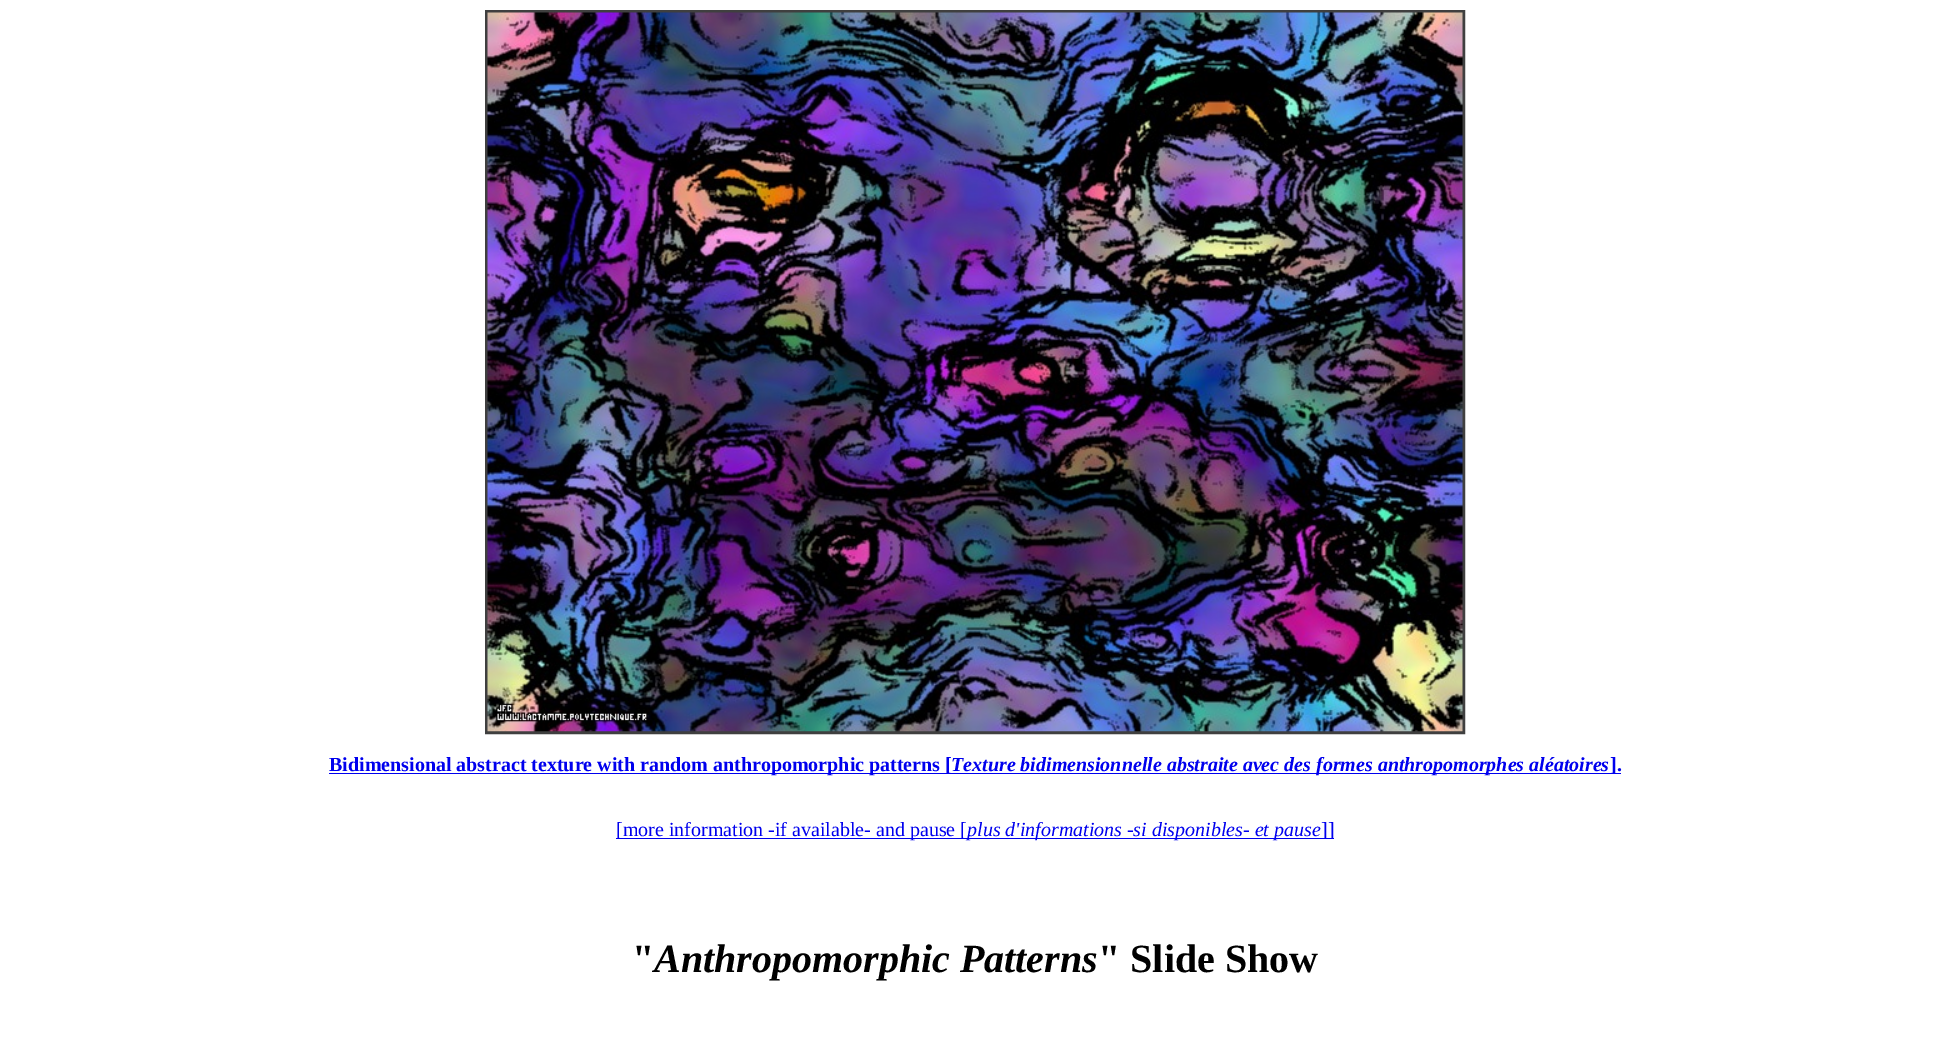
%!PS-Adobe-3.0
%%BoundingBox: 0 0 1949 1054
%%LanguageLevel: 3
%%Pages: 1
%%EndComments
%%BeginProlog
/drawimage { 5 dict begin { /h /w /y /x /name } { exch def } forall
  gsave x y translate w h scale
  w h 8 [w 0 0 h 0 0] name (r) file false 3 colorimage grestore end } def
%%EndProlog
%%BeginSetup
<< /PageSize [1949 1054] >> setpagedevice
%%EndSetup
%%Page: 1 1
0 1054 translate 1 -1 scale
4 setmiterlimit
1 setgray
0 0 1949 1054 rectfill
0.247 setgray
3 setlinewidth
486.5 11.5 977 721 rectstroke
(images/1.raw) 487 12 976 720 drawimage
0 0 0.933 setrgbcolor
329 773 1292 1 rectfill
616 838 718 1 rectfill
/LiberationSerif-Bold [20 0 0 -20 0 0] selectfont
329 771 moveto (Bidimensional abstract texture with random anthropomorphic patterns [) show
/LiberationSerif-BoldItalic [20 0 0 -20 0 0] selectfont
951 771 moveto (Texture bidimensionnelle abstraite avec des formes anthropomorphes aléatoires) show
/LiberationSerif-Bold [20 0 0 -20 0 0] selectfont
1610 771 moveto (].) show
/LiberationSerif-Regular [20 0 0 -20 0 0] selectfont
616 836 moveto ([more information -if available- and pause [) show
/LiberationSerif-Italic [20 0 0 -20 0 0] selectfont
967 836 moveto (plus d'informations -si disponibles- et pause) show
/LiberationSerif-Regular [20 0 0 -20 0 0] selectfont
1321 836 moveto (]]) show
/LiberationSerif-Bold [40 0 0 -40 0 0] selectfont
0 setgray
632 972 moveto (") show
/LiberationSerif-BoldItalic [40 0 0 -40 0 0] selectfont
654 972 moveto (Anthropomorphic Patterns) show
/LiberationSerif-Bold [40 0 0 -40 0 0] selectfont
1098 972 moveto (" Slide Show) show
showpage
%%EOF
